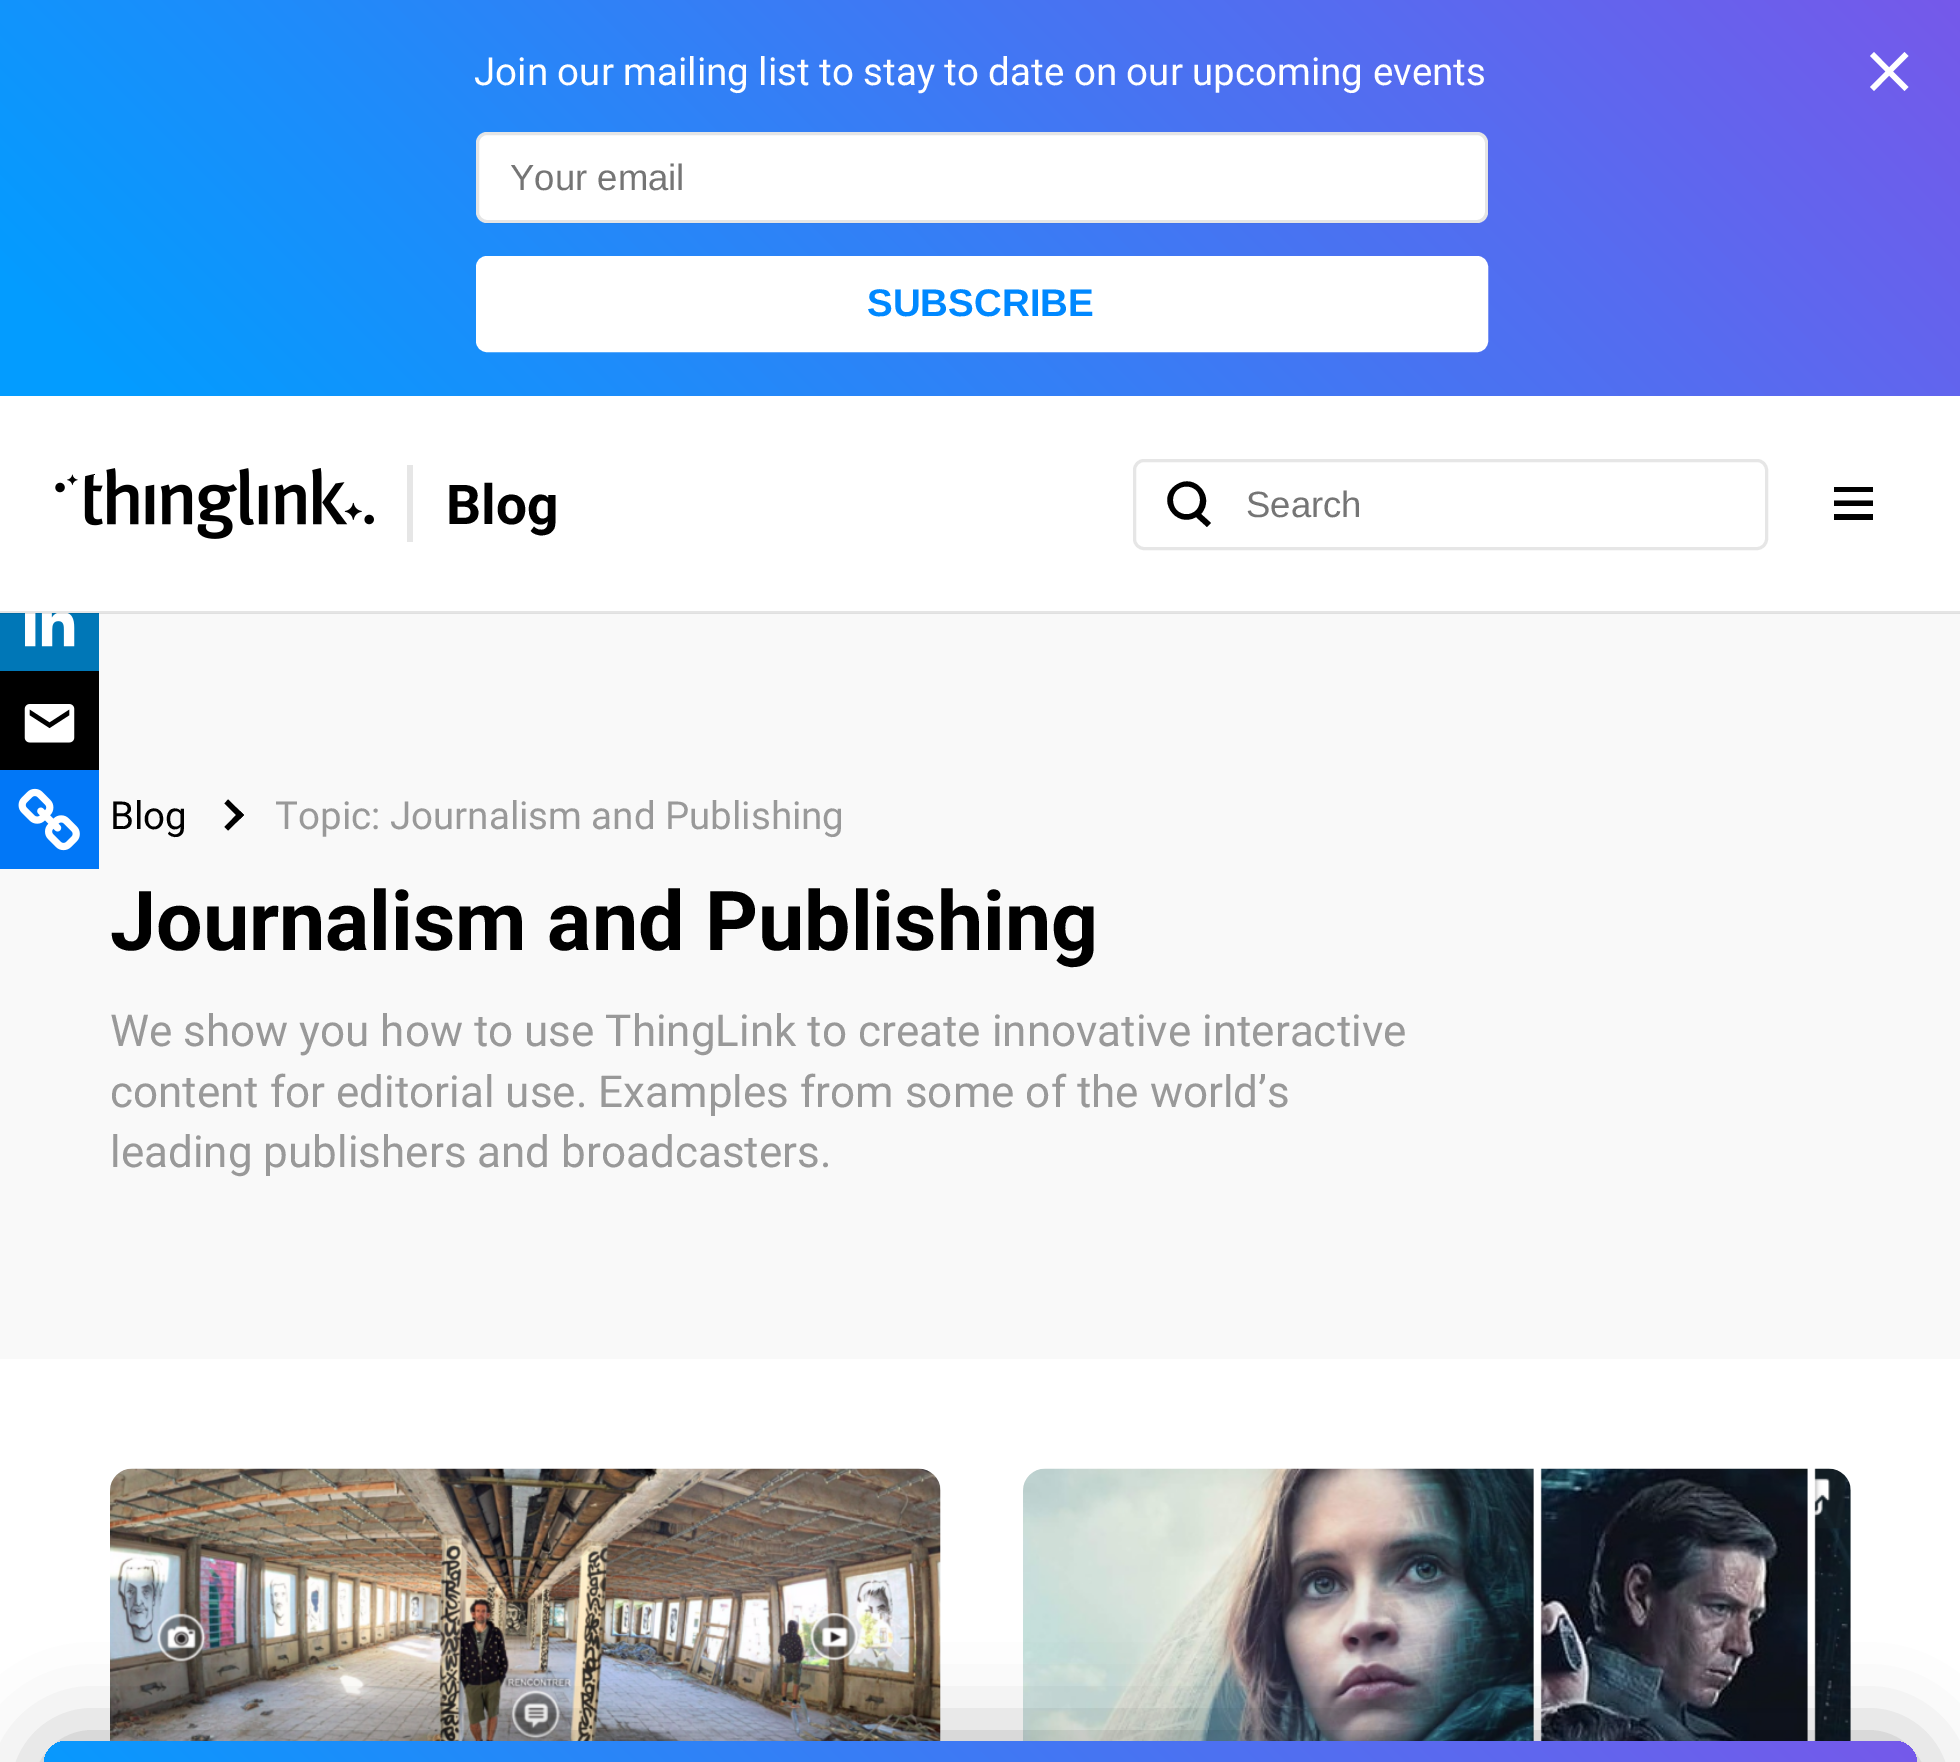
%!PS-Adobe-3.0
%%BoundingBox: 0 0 1960 1762
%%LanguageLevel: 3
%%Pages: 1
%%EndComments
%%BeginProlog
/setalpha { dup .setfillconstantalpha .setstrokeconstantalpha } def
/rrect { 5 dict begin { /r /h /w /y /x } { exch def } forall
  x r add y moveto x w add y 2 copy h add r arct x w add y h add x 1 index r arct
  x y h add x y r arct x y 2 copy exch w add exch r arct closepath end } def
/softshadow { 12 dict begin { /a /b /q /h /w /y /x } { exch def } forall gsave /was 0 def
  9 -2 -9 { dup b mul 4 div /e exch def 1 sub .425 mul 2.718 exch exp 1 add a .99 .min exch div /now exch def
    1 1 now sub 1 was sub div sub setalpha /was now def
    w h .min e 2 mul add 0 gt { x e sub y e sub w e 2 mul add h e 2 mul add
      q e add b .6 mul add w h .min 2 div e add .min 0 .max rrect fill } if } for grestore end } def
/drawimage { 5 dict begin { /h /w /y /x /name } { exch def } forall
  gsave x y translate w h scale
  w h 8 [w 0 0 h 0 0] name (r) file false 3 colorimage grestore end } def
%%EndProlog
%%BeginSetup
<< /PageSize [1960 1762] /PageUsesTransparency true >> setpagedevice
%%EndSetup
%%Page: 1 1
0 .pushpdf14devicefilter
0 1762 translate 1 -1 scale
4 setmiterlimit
1 setgray
0 0 1960 1762 rectfill
gsave newpath 0 0 moveto 1960 0 lineto 1960 396 lineto 0 396 lineto closepath clip newpath
<< /ShadingType 2 /ColorSpace /DeviceRGB /Coords [391 787 1570 -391] /Extend [true true] /Function << /FunctionType 3 /Domain [0 1] /Functions [<< /FunctionType 2 /Domain [0 1] /C0 [0.012 0.612 1] /C1 [0.012 0.612 1] /N 1 >> << /FunctionType 2 /Domain [0 1] /C0 [0.012 0.612 1] /C1 [0.463 0.349 0.918] /N 1 >>] /Bounds [0.05] /Encode [0 1 0 1] >> >> shfill grestore
476 132 1012 91 11 rrect fill
0.1 setalpha
0 setgray
3 setlinewidth
477.5 133.5 1009 88 9.5 rrect stroke
1 setalpha
1 setgray
479 259 1006 90 8 rrect gsave fill grestore
6 setlinewidth
stroke
newpath 1908.5 56 moveto 1904.5 52 lineto 1889 67.5 lineto 1874 52 lineto 1870 56 lineto 1885.5 71.5 lineto 1870 87 lineto 1874 91 lineto 1889 75.5 lineto 1904.5 91 lineto 1908.5 87 lineto 1893 71.5 lineto closepath eofill
0.976 setgray
0 613 1960 746 rectfill
0 0.467 0.718 setrgbcolor
0 613 99 58 rectfill
(images/1.raw) 25 613 50 34 drawimage
0 setgray
0 671 99 99 rectfill
(images/2.raw) 24 704 51 39 drawimage
0.004 0.467 0.969 setrgbcolor
0 770 99 99 rectfill
(images/3.raw) 18 788 62 63 drawimage
0.1 setalpha
0 setgray
0 611 1960 3 rectfill
1 setalpha
0.902 setgray
407 465 6 77 rectfill
(images/4.raw) 55 468 319 71 drawimage
3 setlinewidth
1134.5 460.5 632 88 9.5 rrect stroke
0 setgray
newpath 1173 500 moveto 1173 482 1200 482 1200 500 curveto 1200 519 1173 519 1173 500 curveto closepath 1211 523 moveto 1201 514 lineto 1216 497 1195 472 1176 485 curveto 1155 499 1176 529 1196 517 curveto 1207 527 lineto closepath eofill
newpath 1834 520 moveto 1873 520 lineto 1873 514 lineto 1834 514 lineto closepath 1834 487 moveto 1834 492 lineto 1873 492 lineto 1873 487 lineto closepath 1834 506 moveto 1873 506 lineto 1873 500.5 lineto 1834 500.5 lineto closepath eofill
newpath 228 799.5 moveto 244 815 lineto 240 819 lineto 224.5 803.5 lineto closepath fill
newpath 240 811 moveto 244 815 lineto 228 830.5 lineto 224.5 827 lineto closepath fill
0.976 setgray
110 1469 831 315 22 rrect fill
(images/5.raw) 110 1468 831 273 drawimage
1023 1469 828 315 22 rrect fill
(images/6.raw) 1023 1468 828 273 drawimage
0 setgray
44 1741 1873 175 22 44 0.3 softshadow
gsave 44 1741 1873 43 22 rrect clip newpath
<< /ShadingType 2 /ColorSpace /DeviceRGB /Coords [459 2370 1502 1326] /Extend [true true] /Function << /FunctionType 3 /Domain [0 1] /Functions [<< /FunctionType 2 /Domain [0 1] /C0 [0.012 0.612 1] /C1 [0.012 0.612 1] /N 1 >> << /FunctionType 2 /Domain [0 1] /C0 [0.012 0.612 1] /C1 [0.463 0.349 0.918] /N 1 >>] /Bounds [0.05] /Encode [0 1 0 1] >> >> shfill grestore
/Roboto-Regular [38.5 0 0 -38.5 0 0] selectfont
1 setgray
474 85 moveto (Join our mailing list to stay to date on our upcoming events) show
/LiberationSans-Regular [36.5 0 0 -36.5 0 0] selectfont
0.459 setgray
510 190 moveto (Your email) show
/LiberationSans-Bold [38.5 0 0 -38.5 0 0] selectfont
0 0.533 1 setrgbcolor
867 316 moveto (SUBSCRIBE) show
/Roboto-Bold [55 0 0 -55 0 0] selectfont
0 setgray
446 524 moveto (Blog) show
/LiberationSans-Regular [36.5 0 0 -36.5 0 0] selectfont
0.459 setgray
1246 517 moveto (Search) show
/Roboto-Regular [38.5 0 0 -38.5 0 0] selectfont
0 setgray
110 829 moveto (Blog) show
0.6 setgray
275 829 moveto (Topic: Journalism and Publishing) show
/Roboto-Bold [82.5 0 0 -82.5 0 0] selectfont
0 setgray
110 950 moveto (Journalism and Publishing) show
/Roboto-Regular [44 0 0 -44 0 0] selectfont
0.6 setgray
110 1046 moveto (We show you how to use ThingLink to create innovative interactive) show
110 1107 moveto (content for editorial use. Examples from some of the world’s) show
110 1167 moveto (leading publishers and broadcasters.) show
.poppdf14devicefilter showpage
%%EOF
